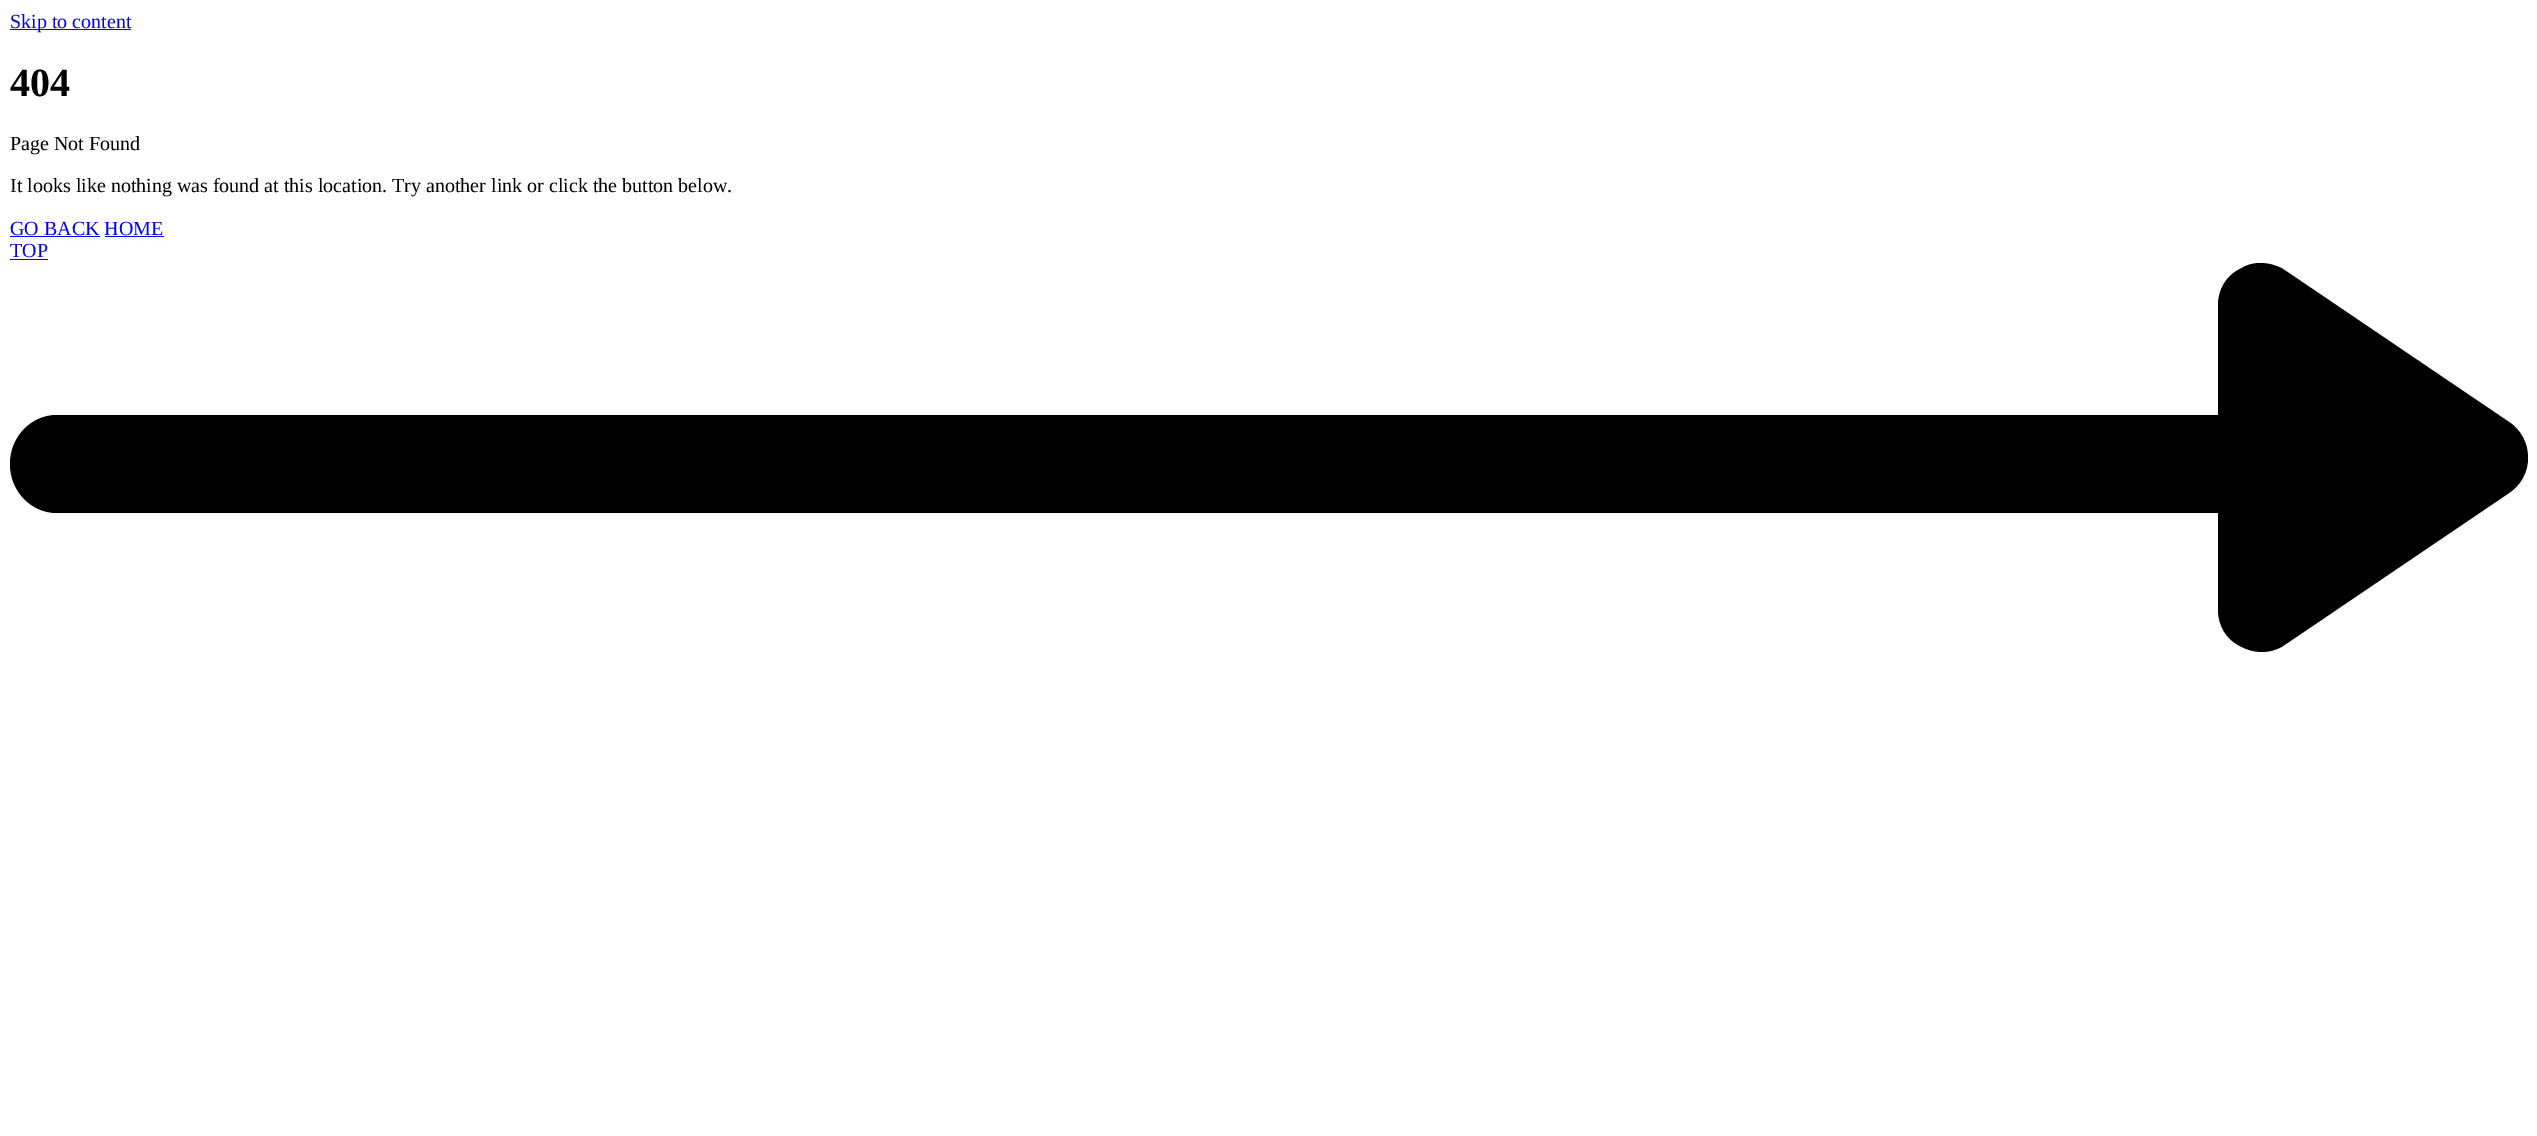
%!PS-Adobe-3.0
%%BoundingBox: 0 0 2537 1136
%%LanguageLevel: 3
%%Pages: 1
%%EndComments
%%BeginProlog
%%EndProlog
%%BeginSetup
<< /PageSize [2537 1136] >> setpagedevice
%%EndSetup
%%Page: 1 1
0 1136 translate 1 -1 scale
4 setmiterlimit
1 setgray
0 0 2537 1136 rectfill
0 0 0.933 setrgbcolor
10 29 121 1 rectfill
10 236 90 1 rectfill
105 236 59 1 rectfill
10 259 38 1 rectfill
0 setgray
newpath 57 415 moveto 2226 415 lineto 2226 513 lineto 57 513 lineto 31 513 10 491 10 464 curveto 10 437 31 415 57 415 curveto closepath fill
newpath 2509 422 moveto 2283 269 lineto 2276 265 2268 263 2260 263 curveto 2253 263 2246 265 2240 269 curveto 2227 275 2218 289 2218 305 curveto 2218 610 lineto 2218 626 2227 640 2240 646 curveto 2254 654 2270 654 2283 646 curveto 2509 493 lineto 2521 485 2528 472 2528 458 curveto 2528 443 2521 430 2509 422 curveto closepath fill
/LiberationSerif-Regular [20 0 0 -20 0 0] selectfont
0 0 0.933 setrgbcolor
10 28 moveto (Skip to content) show
/LiberationSerif-Bold [40 0 0 -40 0 0] selectfont
0 setgray
10 96 moveto (404) show
/LiberationSerif-Regular [20 0 0 -20 0 0] selectfont
10 150 moveto (Page Not Found) show
10 192 moveto (It looks like nothing was found at this location. Try another link or click the button below.) show
0 0 0.933 setrgbcolor
10 235 moveto (GO BACK HOME) show
10 257 moveto (TOP) show
showpage
%%EOF
